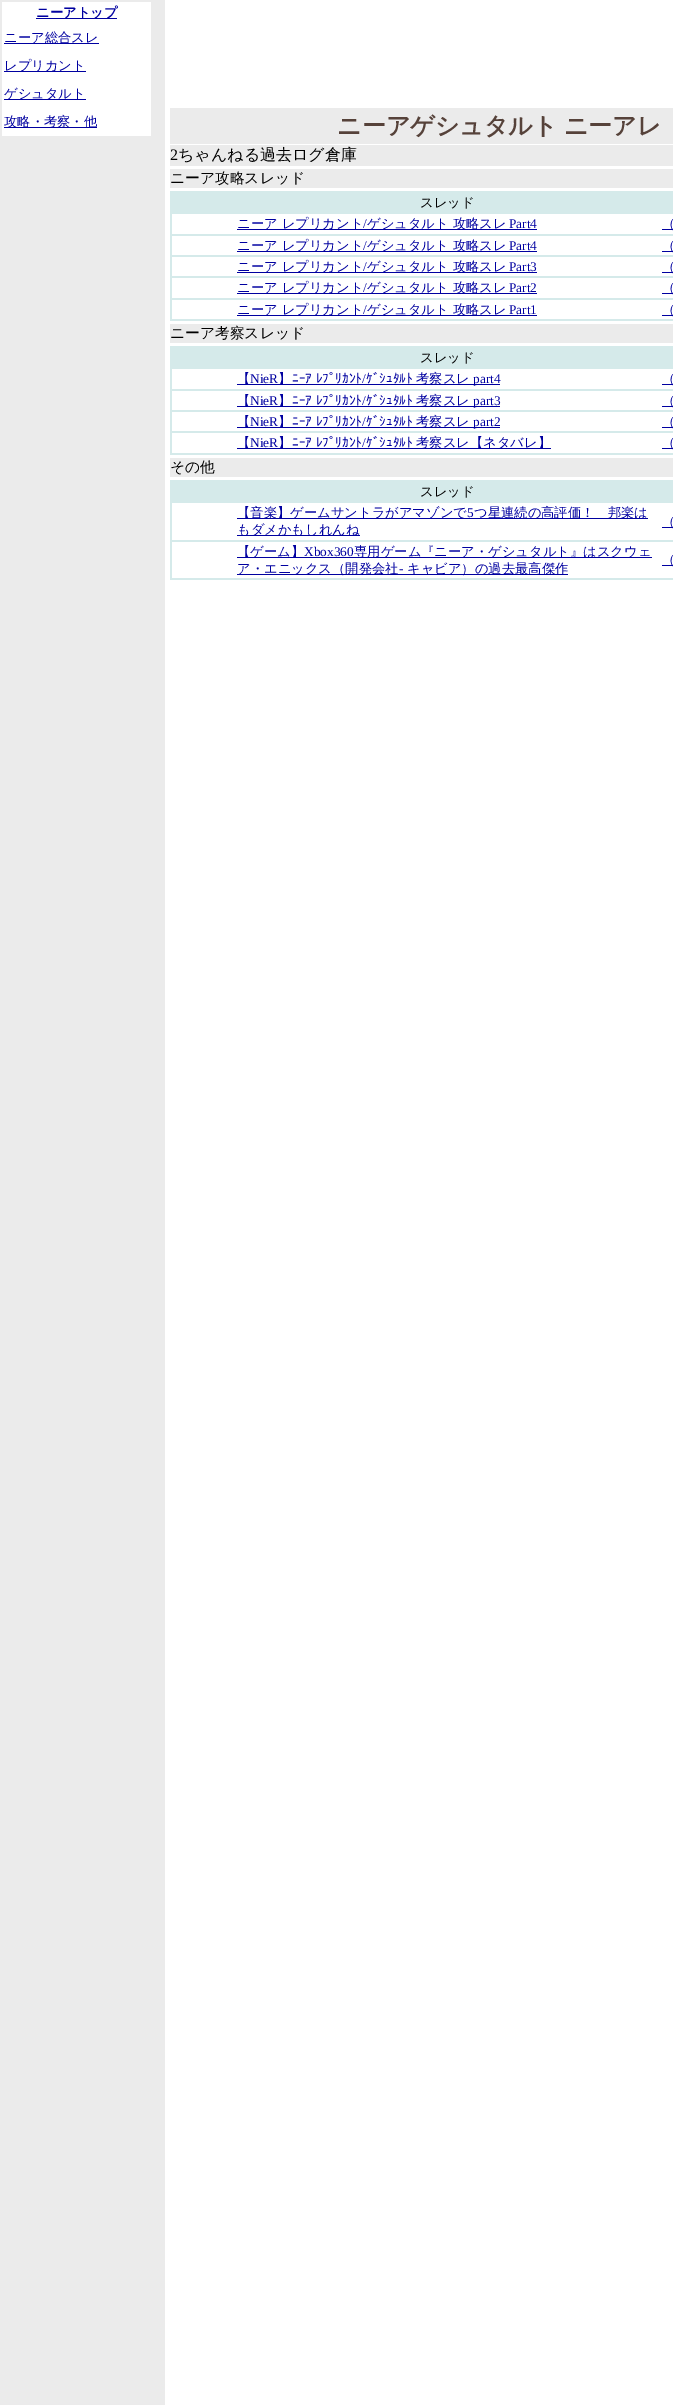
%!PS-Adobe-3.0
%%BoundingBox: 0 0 673 2405
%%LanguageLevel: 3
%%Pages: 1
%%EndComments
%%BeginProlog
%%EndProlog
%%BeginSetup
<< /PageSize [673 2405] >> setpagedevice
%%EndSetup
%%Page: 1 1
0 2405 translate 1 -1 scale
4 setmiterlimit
1 setgray
0 0 673 2405 rectfill
0.922 setgray
0 0 165 2405 rectfill
1 setgray
2 2 149 134 rectfill
0 0 0.627 setrgbcolor
36 18 81 1 rectfill
4 43 95 1 rectfill
4 71 82 1 rectfill
4 99 82 1 rectfill
4 127 93 1 rectfill
0.922 setgray
170 108 503 36 rectfill
170 145 503 21 rectfill
170 169 503 19 rectfill
0.835 0.918 0.918 setrgbcolor
170 191 503 130 rectfill
1 setgray
172 214 501 20 rectfill
0 0 0.627 setrgbcolor
237 229 300 1 rectfill
662 229 11 1 rectfill
1 setgray
172 236 501 19 rectfill
0 0 0.627 setrgbcolor
237 251 300 1 rectfill
662 251 11 1 rectfill
1 setgray
172 257 501 19 rectfill
0 0 0.627 setrgbcolor
237 272 300 1 rectfill
662 272 11 1 rectfill
1 setgray
172 278 501 20 rectfill
0 0 0.627 setrgbcolor
237 293 300 1 rectfill
662 293 11 1 rectfill
1 setgray
172 300 501 19 rectfill
0 0 0.627 setrgbcolor
237 315 300 1 rectfill
662 315 11 1 rectfill
0.922 setgray
170 324 503 19 rectfill
0.835 0.918 0.918 setrgbcolor
170 346 503 109 rectfill
1 setgray
172 369 501 20 rectfill
0 0 0.627 setrgbcolor
237 384 263 1 rectfill
662 384 11 1 rectfill
1 setgray
172 391 501 19 rectfill
0 0 0.627 setrgbcolor
237 406 263 1 rectfill
662 406 11 1 rectfill
1 setgray
172 412 501 19 rectfill
0 0 0.627 setrgbcolor
237 427 263 1 rectfill
662 427 11 1 rectfill
1 setgray
172 433 501 20 rectfill
0 0 0.627 setrgbcolor
237 448 314 1 rectfill
662 448 11 1 rectfill
0.922 setgray
170 458 503 19 rectfill
0.835 0.918 0.918 setrgbcolor
170 480 503 100 rectfill
1 setgray
172 503 501 37 rectfill
0 0 0.627 setrgbcolor
237 518 411 1 rectfill
237 535 123 1 rectfill
662 527 11 1 rectfill
1 setgray
172 542 501 36 rectfill
0 0 0.627 setrgbcolor
237 557 415 1 rectfill
237 574 331 1 rectfill
662 565 11 1 rectfill
/WenQuanYiZenHei-Bold [13.3 0 0 -13.3 0 0] selectfont
36 17 moveto (ニーアトップ) show
/WenQuanYiZenHei-Medium [13.3 0 0 -13.3 0 0] selectfont
4 42 moveto (ニーア総合スレ) show
4 70 moveto (レプリカント) show
4 98 moveto (ゲシュタルト) show
4 126 moveto (攻略・考察・他) show
/WenQuanYiZenHei-Bold [24 0 0 -24 0 0] selectfont
0.337 0.259 0.227 setrgbcolor
337 134 moveto -1 0 32 (ニーアゲシュタルト ニーアレ) widthshow
/LiberationSerif-Regular [16 0 0 -16 0 0] selectfont
0 setgray
170 160 moveto (2) show
/WenQuanYiZenHei-Medium [16 0 0 -16 0 0] selectfont
178 160 moveto (ちゃんねる過去ログ倉庫) show
/WenQuanYiZenHei-Medium [14.75 0 0 -14.75 0 0] selectfont
170 183 moveto (ニーア攻略スレッド) show
/WenQuanYiZenHei-Medium [13.3 0 0 -13.3 0 0] selectfont
420 207 moveto (スレッド) show
0 0 0.627 setrgbcolor
237 228 moveto (ニーア レプリカント) show
/LiberationSerif-Regular [13.3 0 0 -13.3 0 0] selectfont
363 228 moveto (/) show
/WenQuanYiZenHei-Medium [13.3 0 0 -13.3 0 0] selectfont
367 228 moveto (ゲシュタルト 攻略スレ) show
/LiberationSerif-Regular [13.3 0 0 -13.3 0 0] selectfont
509 228 moveto (Part4) show
/WenQuanYiZenHei-Medium [13.3 0 0 -13.3 0 0] selectfont
662 228 moveto (（) show
237 250 moveto (ニーア レプリカント) show
/LiberationSerif-Regular [13.3 0 0 -13.3 0 0] selectfont
363 250 moveto (/) show
/WenQuanYiZenHei-Medium [13.3 0 0 -13.3 0 0] selectfont
367 250 moveto (ゲシュタルト 攻略スレ) show
/LiberationSerif-Regular [13.3 0 0 -13.3 0 0] selectfont
509 250 moveto (Part4) show
/WenQuanYiZenHei-Medium [13.3 0 0 -13.3 0 0] selectfont
662 250 moveto (（) show
237 271 moveto (ニーア レプリカント) show
/LiberationSerif-Regular [13.3 0 0 -13.3 0 0] selectfont
363 271 moveto (/) show
/WenQuanYiZenHei-Medium [13.3 0 0 -13.3 0 0] selectfont
367 271 moveto (ゲシュタルト 攻略スレ) show
/LiberationSerif-Regular [13.3 0 0 -13.3 0 0] selectfont
509 271 moveto (Part3) show
/WenQuanYiZenHei-Medium [13.3 0 0 -13.3 0 0] selectfont
662 271 moveto (（) show
237 292 moveto (ニーア レプリカント) show
/LiberationSerif-Regular [13.3 0 0 -13.3 0 0] selectfont
363 292 moveto (/) show
/WenQuanYiZenHei-Medium [13.3 0 0 -13.3 0 0] selectfont
367 292 moveto (ゲシュタルト 攻略スレ) show
/LiberationSerif-Regular [13.3 0 0 -13.3 0 0] selectfont
509 292 moveto (Part2) show
/WenQuanYiZenHei-Medium [13.3 0 0 -13.3 0 0] selectfont
662 292 moveto (（) show
237 314 moveto (ニーア レプリカント) show
/LiberationSerif-Regular [13.3 0 0 -13.3 0 0] selectfont
363 314 moveto (/) show
/WenQuanYiZenHei-Medium [13.3 0 0 -13.3 0 0] selectfont
367 314 moveto (ゲシュタルト 攻略スレ) show
/LiberationSerif-Regular [13.3 0 0 -13.3 0 0] selectfont
509 314 moveto (Part1) show
/WenQuanYiZenHei-Medium [13.3 0 0 -13.3 0 0] selectfont
662 314 moveto (（) show
/WenQuanYiZenHei-Medium [14.75 0 0 -14.75 0 0] selectfont
0 setgray
170 338 moveto (ニーア考察スレッド) show
/WenQuanYiZenHei-Medium [13.3 0 0 -13.3 0 0] selectfont
420 362 moveto (スレッド) show
0 0 0.627 setrgbcolor
237 383 moveto (【) show
/LiberationSerif-Regular [13.3 0 0 -13.3 0 0] selectfont
250 383 moveto (NieR) show
/WenQuanYiZenHei-Medium [13.3 0 0 -13.3 0 0] selectfont
278 383 moveto (】) show
/IPAPGothic-Regular [13.3 0 0 -13.3 0 0] selectfont
292 383 moveto (ﾆｰｱ ﾚﾌﾟﾘｶﾝﾄ) show
/LiberationSerif-Regular [13.3 0 0 -13.3 0 0] selectfont
362 383 moveto (/) show
/IPAPGothic-Regular [13.3 0 0 -13.3 0 0] selectfont
366 383 moveto (ｹﾞｼｭﾀﾙﾄ) show
/WenQuanYiZenHei-Medium [13.3 0 0 -13.3 0 0] selectfont
416 383 moveto (考察スレ) show
/LiberationSerif-Regular [13.3 0 0 -13.3 0 0] selectfont
473 383 moveto (part4) show
/WenQuanYiZenHei-Medium [13.3 0 0 -13.3 0 0] selectfont
662 383 moveto (（) show
237 405 moveto (【) show
/LiberationSerif-Regular [13.3 0 0 -13.3 0 0] selectfont
250 405 moveto (NieR) show
/WenQuanYiZenHei-Medium [13.3 0 0 -13.3 0 0] selectfont
278 405 moveto (】) show
/IPAPGothic-Regular [13.3 0 0 -13.3 0 0] selectfont
292 405 moveto (ﾆｰｱ ﾚﾌﾟﾘｶﾝﾄ) show
/LiberationSerif-Regular [13.3 0 0 -13.3 0 0] selectfont
362 405 moveto (/) show
/IPAPGothic-Regular [13.3 0 0 -13.3 0 0] selectfont
366 405 moveto (ｹﾞｼｭﾀﾙﾄ) show
/WenQuanYiZenHei-Medium [13.3 0 0 -13.3 0 0] selectfont
416 405 moveto (考察スレ) show
/LiberationSerif-Regular [13.3 0 0 -13.3 0 0] selectfont
473 405 moveto (part3) show
/WenQuanYiZenHei-Medium [13.3 0 0 -13.3 0 0] selectfont
662 405 moveto (（) show
237 426 moveto (【) show
/LiberationSerif-Regular [13.3 0 0 -13.3 0 0] selectfont
250 426 moveto (NieR) show
/WenQuanYiZenHei-Medium [13.3 0 0 -13.3 0 0] selectfont
278 426 moveto (】) show
/IPAPGothic-Regular [13.3 0 0 -13.3 0 0] selectfont
292 426 moveto (ﾆｰｱ ﾚﾌﾟﾘｶﾝﾄ) show
/LiberationSerif-Regular [13.3 0 0 -13.3 0 0] selectfont
362 426 moveto (/) show
/IPAPGothic-Regular [13.3 0 0 -13.3 0 0] selectfont
366 426 moveto (ｹﾞｼｭﾀﾙﾄ) show
/WenQuanYiZenHei-Medium [13.3 0 0 -13.3 0 0] selectfont
416 426 moveto (考察スレ) show
/LiberationSerif-Regular [13.3 0 0 -13.3 0 0] selectfont
473 426 moveto (part2) show
/WenQuanYiZenHei-Medium [13.3 0 0 -13.3 0 0] selectfont
662 426 moveto (（) show
237 447 moveto (【) show
/LiberationSerif-Regular [13.3 0 0 -13.3 0 0] selectfont
250 447 moveto (NieR) show
/WenQuanYiZenHei-Medium [13.3 0 0 -13.3 0 0] selectfont
278 447 moveto (】) show
/IPAPGothic-Regular [13.3 0 0 -13.3 0 0] selectfont
292 447 moveto (ﾆｰｱ ﾚﾌﾟﾘｶﾝﾄ) show
/LiberationSerif-Regular [13.3 0 0 -13.3 0 0] selectfont
362 447 moveto (/) show
/IPAPGothic-Regular [13.3 0 0 -13.3 0 0] selectfont
366 447 moveto (ｹﾞｼｭﾀﾙﾄ) show
/WenQuanYiZenHei-Medium [13.3 0 0 -13.3 0 0] selectfont
416 447 moveto (考察スレ【ネタバレ】) show
662 447 moveto (（) show
/WenQuanYiZenHei-Medium [14.75 0 0 -14.75 0 0] selectfont
0 setgray
170 472 moveto (その他) show
/WenQuanYiZenHei-Medium [13.3 0 0 -13.3 0 0] selectfont
420 496 moveto (スレッド) show
0 0 0.627 setrgbcolor
237 517 moveto (【音楽】ゲームサントラがアマゾンで) show
/LiberationSerif-Regular [13.3 0 0 -13.3 0 0] selectfont
467 517 moveto (5) show
/WenQuanYiZenHei-Medium [13.3 0 0 -13.3 0 0] selectfont
474 517 moveto (つ星連続の高評価！　邦楽は) show
237 534 moveto (もダメかもしれんね) show
662 526 moveto (（) show
237 556 moveto (【ゲーム】) show
/LiberationSerif-Regular [13.3 0 0 -13.3 0 0] selectfont
304 556 moveto (Xbox360) show
/WenQuanYiZenHei-Medium [13.3 0 0 -13.3 0 0] selectfont
354 556 moveto (専用ゲーム『ニーア・ゲシュタルト』はスクウェ) show
237 573 moveto (ア・エニックス（開発会社) show
/LiberationSerif-Regular [13.3 0 0 -13.3 0 0] selectfont
399 573 moveto (-) show
/WenQuanYiZenHei-Medium [13.3 0 0 -13.3 0 0] selectfont
407 573 moveto (キャビア）の過去最高傑作) show
662 564 moveto (（) show
showpage
%%EOF
